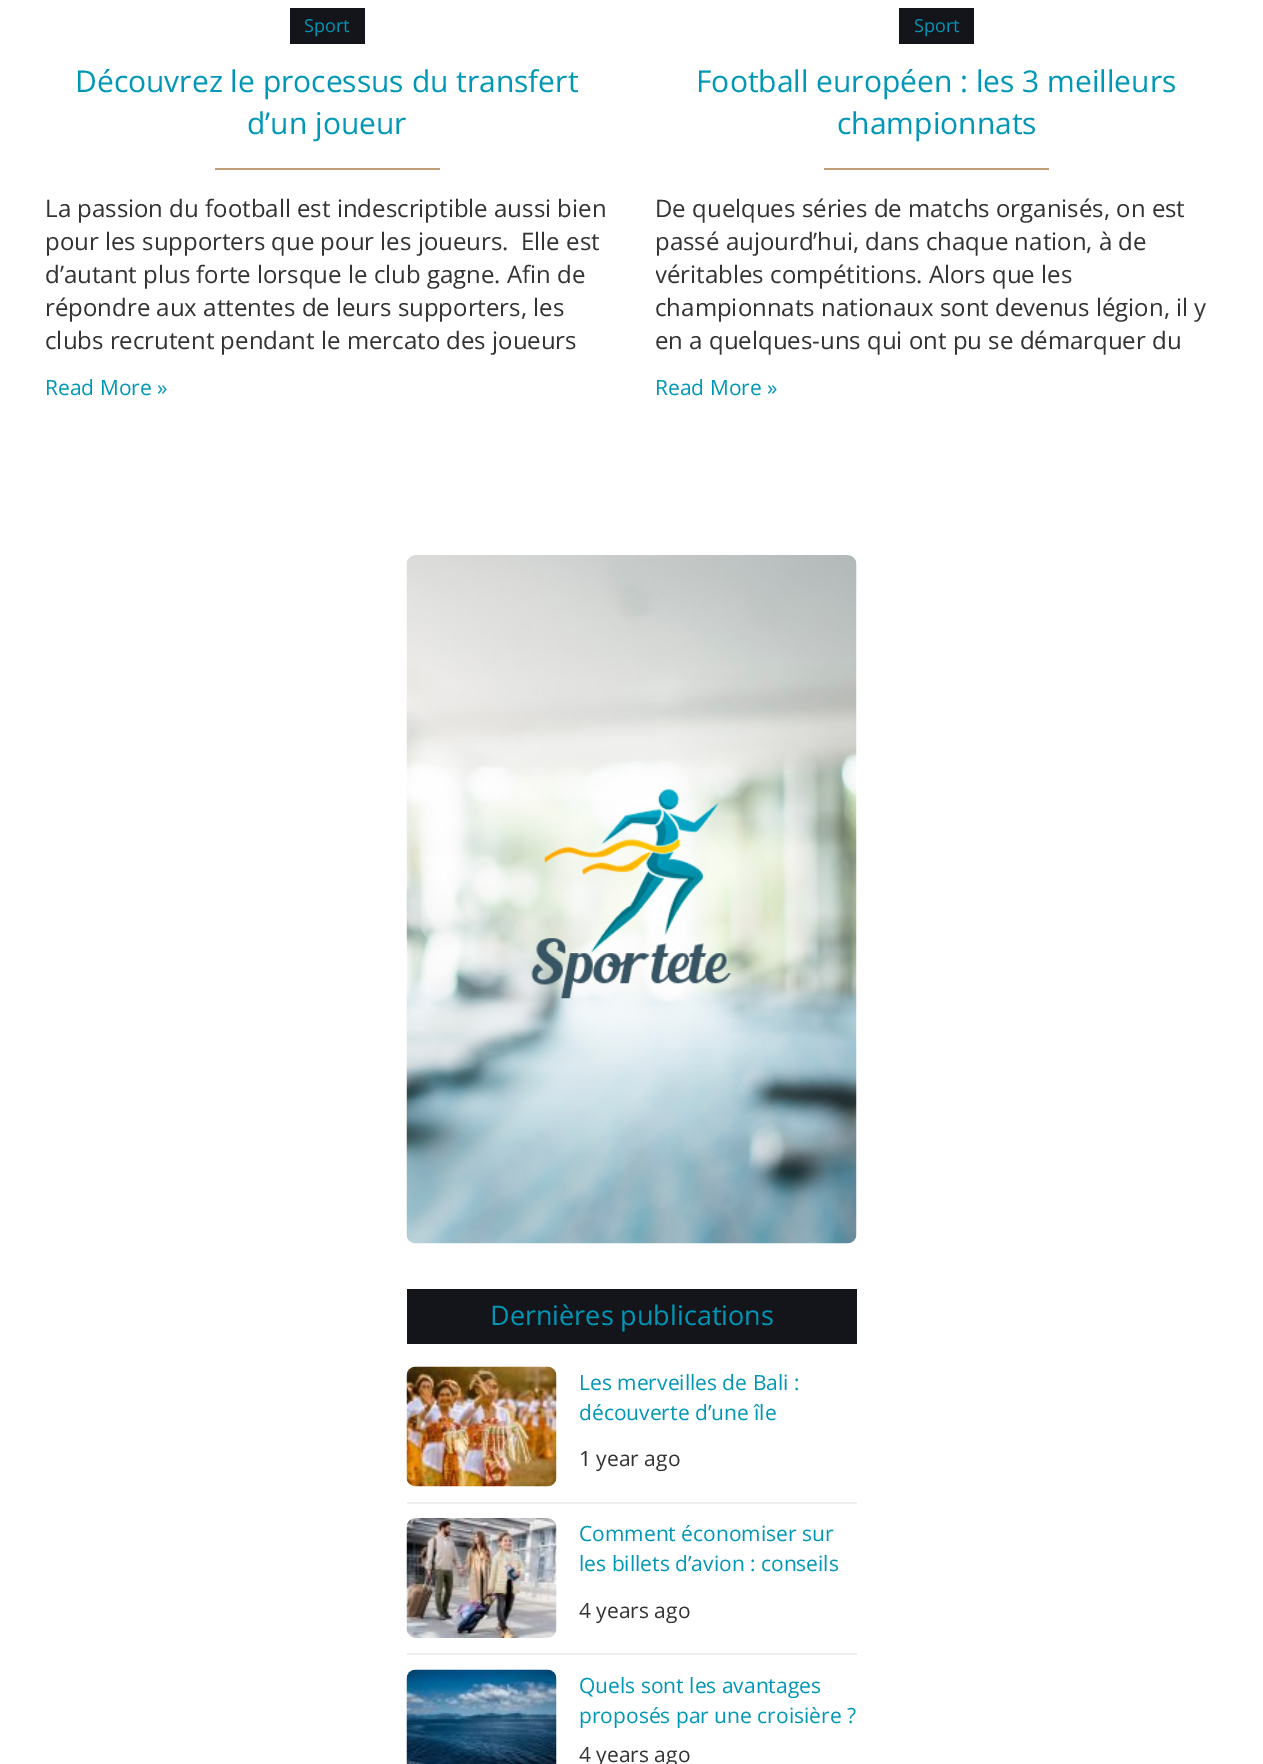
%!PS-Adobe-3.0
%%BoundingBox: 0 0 1263 1764
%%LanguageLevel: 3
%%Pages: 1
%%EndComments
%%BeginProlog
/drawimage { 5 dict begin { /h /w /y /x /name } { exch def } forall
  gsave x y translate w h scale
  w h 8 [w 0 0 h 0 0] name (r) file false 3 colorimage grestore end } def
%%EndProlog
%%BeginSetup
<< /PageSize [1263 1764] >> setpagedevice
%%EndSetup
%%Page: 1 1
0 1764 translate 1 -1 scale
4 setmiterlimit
1 setgray
0 0 1263 1764 rectfill
0.078 0.078 0.106 setrgbcolor
290 8 75 36 rectfill
0.753 0.62 0.467 setrgbcolor
215 168 225 2 rectfill
0.078 0.078 0.106 setrgbcolor
899 8 75 36 rectfill
0.753 0.62 0.467 setrgbcolor
824 168 225 2 rectfill
(images/1.raw) 406 555 451 689 drawimage
0.078 0.078 0.106 setrgbcolor
407 1289 450 55 rectfill
0.937 setgray
407 1502 450 2 rectfill
(images/2.raw) 406 1366 151 121 drawimage
407 1653 450 2 rectfill
(images/3.raw) 406 1518 151 120 drawimage
(images/4.raw) 406 1669 151 95 drawimage
/OpenSans-Regular [18 0 0 -18 0 0] selectfont
0 0.592 0.714 setrgbcolor
304 32 moveto (Sport) show
/OpenSans-Regular [30 0 0 -30 0 0] selectfont
75 92 moveto (Découvrez le processus du transfert) show
247 134 moveto (d’un joueur) show
/OpenSans-Regular [24 0 0 -24 0 0] selectfont
0.2 setgray
45 217 moveto (La passion du football est indescriptible aussi bien) show
45 250 moveto (pour les supporters que pour les joueurs.  Elle est) show
45 283 moveto (d’autant plus forte lorsque le club gagne. Afin de) show
45 316 moveto (répondre aux attentes de leurs supporters, les) show
45 349 moveto (clubs recrutent pendant le mercato des joueurs) show
/OpenSans-Regular [21 0 0 -21 0 0] selectfont
0 0.592 0.714 setrgbcolor
45 395 moveto (Read More ») show
/OpenSans-Regular [18 0 0 -18 0 0] selectfont
914 32 moveto (Sport) show
/OpenSans-Regular [30 0 0 -30 0 0] selectfont
696 92 moveto (Football européen : les 3 meilleurs) show
837 134 moveto (championnats) show
/OpenSans-Regular [24 0 0 -24 0 0] selectfont
0.2 setgray
655 217 moveto (De quelques séries de matchs organisés, on est) show
655 250 moveto (passé aujourd’hui, dans chaque nation, à de) show
gsave
656 192 562 165 rectclip
655 283 moveto (véritables compétitions. Alors que les) show
grestore
655 316 moveto (championnats nationaux sont devenus légion, il y) show
655 349 moveto (en a quelques-uns qui ont pu se démarquer du) show
/OpenSans-Regular [21 0 0 -21 0 0] selectfont
0 0.592 0.714 setrgbcolor
655 395 moveto (Read More ») show
/OpenSans-Regular [27 0 0 -27 0 0] selectfont
490 1325 moveto (Dernières publications) show
/OpenSans-Regular [21 0 0 -21 0 0] selectfont
579 1390 moveto (Les merveilles de Bali :) show
579 1420 moveto (découverte d’une île) show
0.2 setgray
579 1466 moveto (1 year ago) show
0 0.592 0.714 setrgbcolor
579 1541 moveto (Comment économiser sur) show
579 1571 moveto (les billets d’avion : conseils) show
0.2 setgray
579 1618 moveto (4 years ago) show
0 0.592 0.714 setrgbcolor
579 1693 moveto (Quels sont les avantages) show
579 1723 moveto (proposés par une croisière ?) show
0.2 setgray
579 1762 moveto (4 years ago) show
showpage
%%EOF
